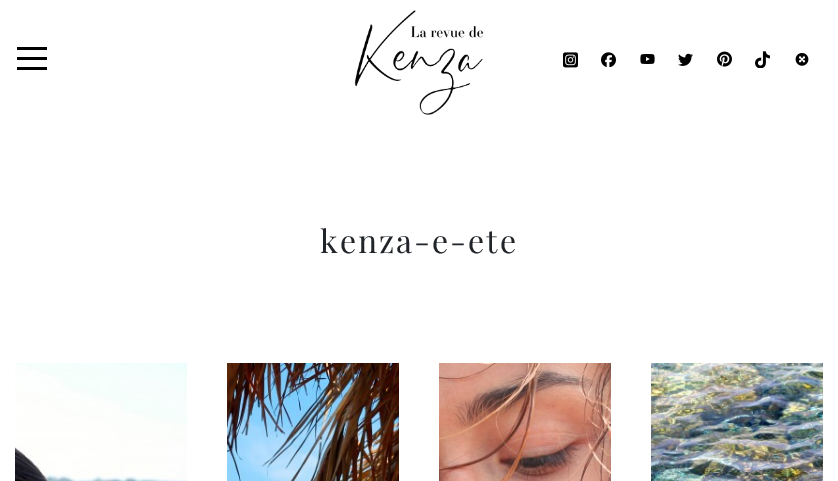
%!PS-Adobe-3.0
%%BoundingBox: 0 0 838 481
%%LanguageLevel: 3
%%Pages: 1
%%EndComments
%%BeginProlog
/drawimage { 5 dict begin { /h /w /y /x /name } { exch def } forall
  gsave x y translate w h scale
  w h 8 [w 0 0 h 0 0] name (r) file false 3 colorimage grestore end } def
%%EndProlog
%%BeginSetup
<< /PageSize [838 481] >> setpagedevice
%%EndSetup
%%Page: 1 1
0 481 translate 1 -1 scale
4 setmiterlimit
1 setgray
0 0 838 481 rectfill
0 setgray
17 57 30 3 rectfill
17 47 30 3 rectfill
17 67 30 3 rectfill
(images/1.raw) 354 10 130 105 drawimage
(images/2.raw) 563 52 15 16 drawimage
(images/3.raw) 601 52 15 15 drawimage
(images/4.raw) 640 54 15 10 drawimage
(images/5.raw) 678 53 15 13 drawimage
(images/6.raw) 717 51 15 16 drawimage
(images/7.raw) 755 51 15 17 drawimage
(images/8.raw) 795 53 14 13 drawimage
(images/9.raw) 15 363 172 118 drawimage
(images/10.raw) 227 363 172 118 drawimage
(images/11.raw) 439 363 172 118 drawimage
(images/12.raw) 651 363 172 118 drawimage
/PlayfairDisplay-Regular [32 0 0 -32 0 0] selectfont
0.129 0.145 0.161 setrgbcolor
320 253 moveto 2 0 (kenza-e-ete) ashow
showpage
%%EOF
